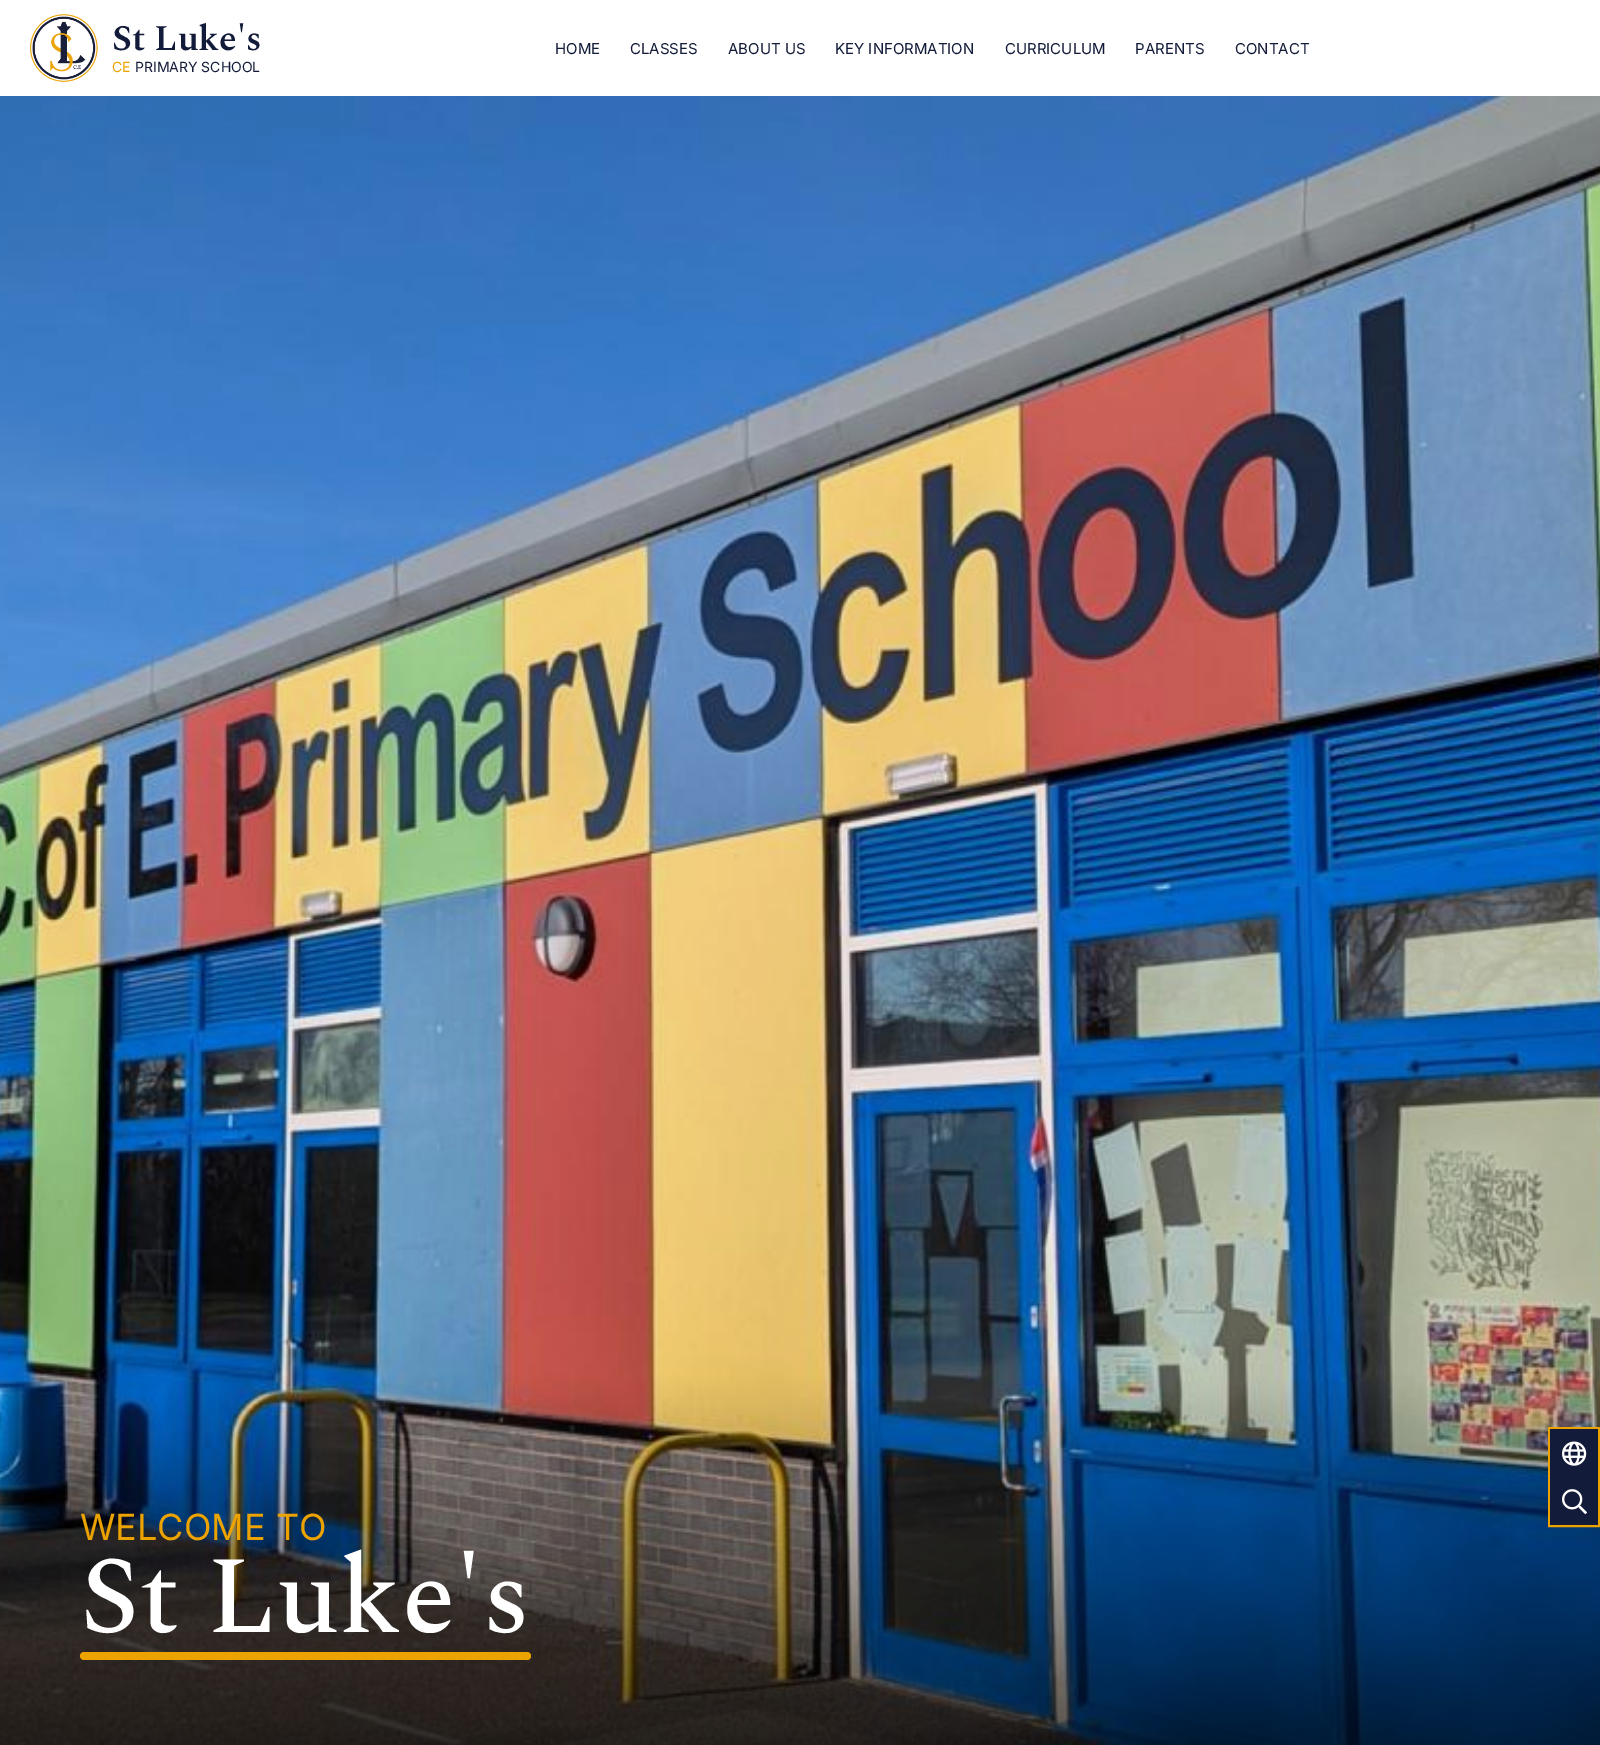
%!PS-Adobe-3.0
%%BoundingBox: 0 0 1600 1745
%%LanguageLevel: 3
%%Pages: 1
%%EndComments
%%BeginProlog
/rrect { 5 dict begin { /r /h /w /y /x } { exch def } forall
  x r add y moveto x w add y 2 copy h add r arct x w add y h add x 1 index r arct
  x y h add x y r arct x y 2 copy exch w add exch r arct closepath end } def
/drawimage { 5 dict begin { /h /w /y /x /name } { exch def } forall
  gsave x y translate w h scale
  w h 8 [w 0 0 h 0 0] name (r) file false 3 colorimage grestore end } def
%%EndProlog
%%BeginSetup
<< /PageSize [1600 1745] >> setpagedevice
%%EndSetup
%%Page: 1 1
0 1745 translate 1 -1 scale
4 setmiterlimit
1 setgray
0 0 1600 1745 rectfill
(images/1.raw) 30 14 68 68 drawimage
(images/4.raw) 0 96 1600 1649 drawimage
0.925 0.639 0 setrgbcolor
2 setlinewidth
1549 1428 50 98 rectstroke
0.071 0.106 0.224 setrgbcolor
1550 1429 48 96 rectfill
(images/2.raw) 1562 1441 25 25 drawimage
(images/3.raw) 1562 1489 25 26 drawimage
0.925 0.639 0 setrgbcolor
80 1652 451 8 4 rrect fill
/Spectral-SemiBold [36 0 0 -36 0 0] selectfont
0.071 0.106 0.224 setrgbcolor
112 50 moveto (St Luke's) show
/Inter-Regular [14 0 0 -14 0 0] selectfont
0.925 0.639 0 setrgbcolor
112 72 moveto (CE) show
0.071 0.106 0.224 setrgbcolor
135 72 moveto (PRIMARY SCHOOL) show
/Inter-Regular [15 0 0 -15 0 0] selectfont
555 54 moveto (HOME) show
630 54 moveto (CLASSES) show
728 54 moveto (ABOUT US) show
835 54 moveto (KEY INFORMATION) show
1005 54 moveto (CURRICULUM) show
1135 54 moveto (PARENTS) show
1235 54 moveto (CONTACT) show
/Inter-Regular [36 0 0 -36 0 0] selectfont
0.925 0.639 0 setrgbcolor
80 1540 moveto (WELCOME TO) show
/Spectral-Medium [110 0 0 -110 0 0] selectfont
1 setgray
80 1632 moveto (St Luke's) show
showpage
%%EOF
